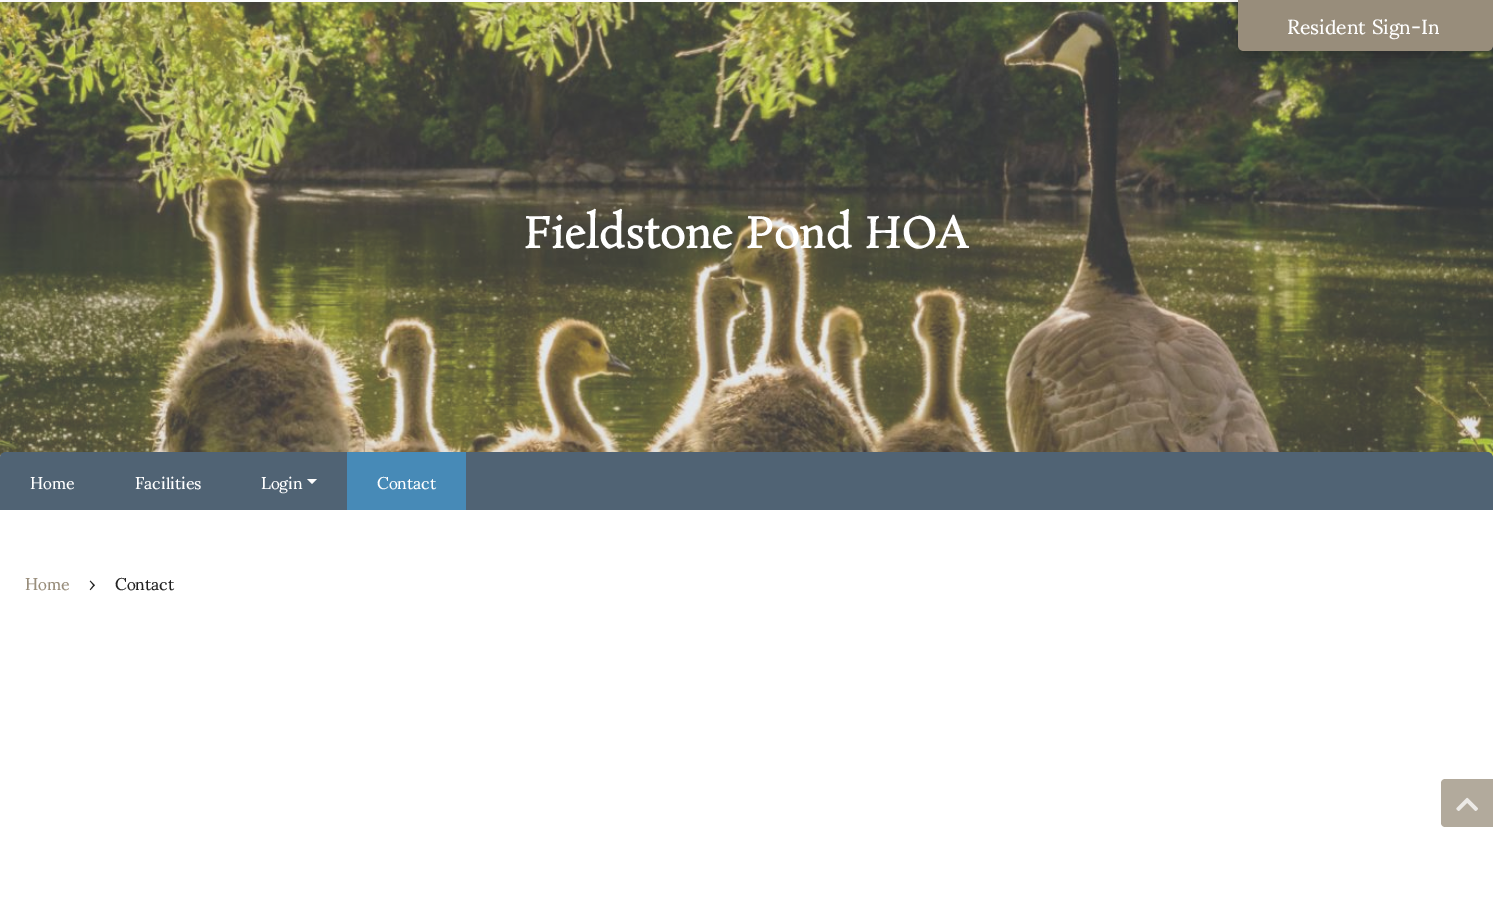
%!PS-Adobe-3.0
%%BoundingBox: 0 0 1493 916
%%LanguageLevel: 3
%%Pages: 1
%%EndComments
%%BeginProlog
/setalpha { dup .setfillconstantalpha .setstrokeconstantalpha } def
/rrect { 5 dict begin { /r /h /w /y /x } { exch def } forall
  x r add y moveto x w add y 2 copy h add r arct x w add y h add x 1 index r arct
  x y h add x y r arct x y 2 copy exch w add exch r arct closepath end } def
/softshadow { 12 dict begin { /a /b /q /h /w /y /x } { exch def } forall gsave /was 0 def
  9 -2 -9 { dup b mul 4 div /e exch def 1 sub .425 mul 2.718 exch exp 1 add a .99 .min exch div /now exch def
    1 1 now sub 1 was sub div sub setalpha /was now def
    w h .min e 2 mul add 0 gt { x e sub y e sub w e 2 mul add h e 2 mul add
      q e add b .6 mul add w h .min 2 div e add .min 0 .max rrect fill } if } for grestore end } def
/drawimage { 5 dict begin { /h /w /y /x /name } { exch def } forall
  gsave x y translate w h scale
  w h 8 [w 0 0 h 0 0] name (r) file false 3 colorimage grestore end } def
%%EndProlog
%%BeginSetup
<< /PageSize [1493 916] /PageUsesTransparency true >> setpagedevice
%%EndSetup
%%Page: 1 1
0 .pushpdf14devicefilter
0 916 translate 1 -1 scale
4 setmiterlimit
1 setgray
0 0 1493 916 rectfill
(images/1.raw) 0 0 1238 2 drawimage
(images/2.raw) 0 2 1493 456 drawimage
0 setgray
1238 5 255 51 6 7.5 0.25 softshadow
0.596 0.553 0.482 setrgbcolor
newpath 1238 0 moveto 1493 0 lineto 1493 45 lineto 1493 48.5 1490.5 51 1487 51 curveto 1244 51 lineto 1240.5 51 1238 48.5 1238 45 curveto closepath fill
0.314 0.388 0.455 setrgbcolor
newpath 6 452 moveto 1487 452 lineto 1490.5 452 1493 454.5 1493 458 curveto 1493 510 lineto 0 510 lineto 0 458 lineto 0 454.5 2.5 452 6 452 curveto closepath fill
1 setgray
newpath 307 479 moveto 317 479 lineto 312 484 lineto closepath fill
0.278 0.541 0.718 setrgbcolor
347 452 119 58 rectfill
0.698 0.667 0.612 setrgbcolor
newpath 1445 779 moveto 1493 779 lineto 1493 827 lineto 1445 827 lineto 1443 827 1441 825 1441 823 curveto 1441 783 lineto 1441 781 1443 779 1445 779 curveto closepath fill
(images/3.raw) 1456 797 22 14 drawimage
/Sumana-Regular [20.5 0 0 -20.5 0 0] selectfont
1 setgray
1287 34 moveto (Resident Sign-In) show
/Rosarivo-Bold [42.5 0 0 -42.5 0 0] selectfont
524 248 moveto (Fieldstone Pond HOA) show
/Sumana-Regular [17 0 0 -17 0 0] selectfont
30 489 moveto (Home) show
135 489 moveto (Facilities) show
261 489 moveto (Login) show
377 489 moveto (Contact) show
0.596 0.553 0.482 setrgbcolor
25 590 moveto (Home) show
0.133 setgray
89 590 moveto (›) show
115 590 moveto (Contact) show
.poppdf14devicefilter showpage
%%EOF
